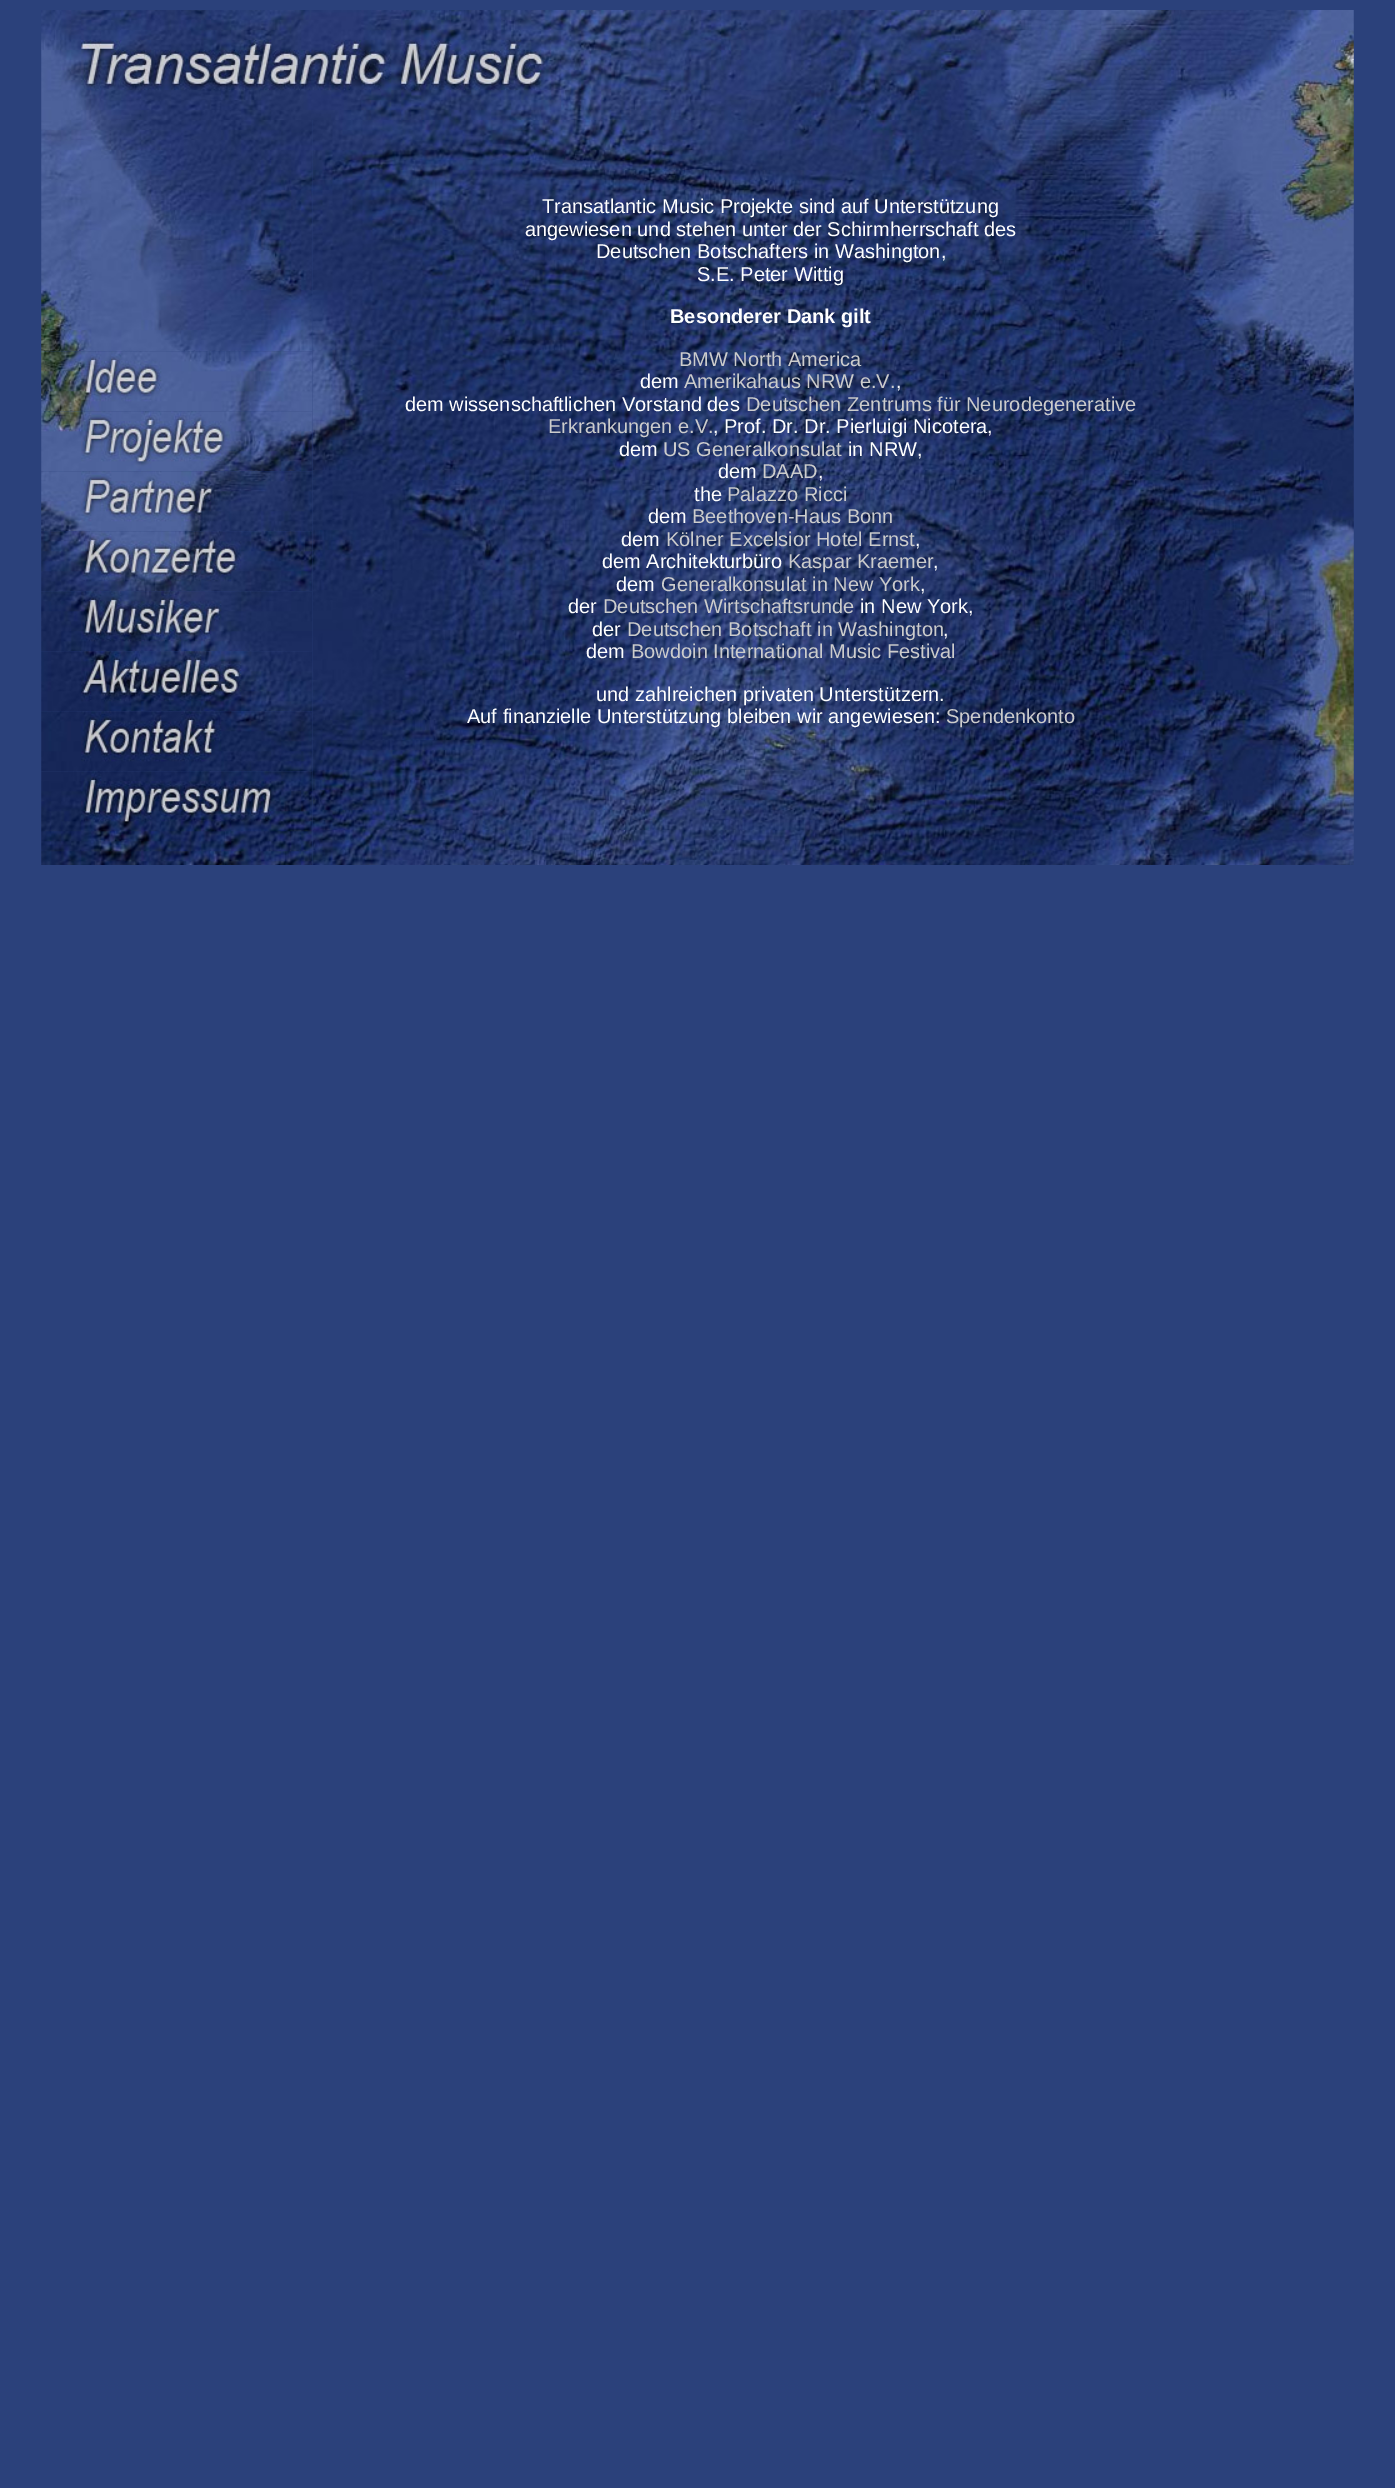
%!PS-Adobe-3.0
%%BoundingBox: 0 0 1395 2488
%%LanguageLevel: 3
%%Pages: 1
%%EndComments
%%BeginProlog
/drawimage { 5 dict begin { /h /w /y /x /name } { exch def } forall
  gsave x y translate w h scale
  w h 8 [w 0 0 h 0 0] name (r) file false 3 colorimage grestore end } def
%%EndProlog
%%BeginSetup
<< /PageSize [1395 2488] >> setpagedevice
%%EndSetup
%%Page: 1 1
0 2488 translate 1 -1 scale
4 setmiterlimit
0.169 0.255 0.482 setrgbcolor
0 0 1395 2488 rectfill
(images/1.raw) 41 10 1313 110 drawimage
(images/4.raw) 312 120 1042 745 drawimage
(images/3.raw) 41 120 272 232 drawimage
(images/2.raw) 41 351 272 61 drawimage
(images/5.raw) 41 411 272 61 drawimage
(images/6.raw) 41 471 272 61 drawimage
(images/7.raw) 41 531 272 61 drawimage
(images/8.raw) 41 591 272 61 drawimage
(images/9.raw) 41 651 272 61 drawimage
(images/10.raw) 41 711 272 61 drawimage
(images/11.raw) 41 771 272 94 drawimage
/LiberationSans-Regular [20 0 0 -20 0 0] selectfont
1 setgray
542 213 moveto (Transatlantic Music Projekte sind auf Unterstützung) show
525 236 moveto (angewiesen und stehen unter der Schirmherrschaft des) show
596 258 moveto (Deutschen Botschafters in Washington,) show
697 281 moveto (S.E. Peter Wittig) show
/LiberationSans-Bold [20 0 0 -20 0 0] selectfont
670 323 moveto (Besonderer Dank gilt) show
/LiberationSans-Regular [20 0 0 -20 0 0] selectfont
0.8 setgray
679 366 moveto (BMW North America) show
1 setgray
640 388 moveto (dem) show
0.8 setgray
684 388 moveto (Amerikahaus NRW e.V.) show
1 setgray
896 388 moveto (,) show
405 411 moveto (dem wissenschaftlichen Vorstand des) show
0.8 setgray
746 411 moveto (Deutschen Zentrums für Neurodegenerative) show
548 433 moveto (Erkrankungen e.V.) show
1 setgray
713 433 moveto (, Prof. Dr. Dr. Pierluigi Nicotera,) show
619 456 moveto (dem) show
0.8 setgray
663 456 moveto (US Generalkonsulat) show
1 setgray
848 456 moveto (in NRW,) show
718 478 moveto (dem) show
0.8 setgray
762 478 moveto (DAAD) show
1 setgray
818 478 moveto (,) show
694 501 moveto (the) show
0.8 setgray
727 501 moveto (Palazzo Ricci) show
1 setgray
648 523 moveto (dem) show
0.8 setgray
692 523 moveto (Beethoven-Haus Bonn) show
1 setgray
621 546 moveto (dem) show
0.8 setgray
666 546 moveto (Kölner Excelsior Hotel Ernst) show
1 setgray
915 546 moveto (,) show
602 568 moveto (dem Architekturbüro) show
0.8 setgray
788 568 moveto (Kaspar Kraemer) show
1 setgray
933 568 moveto (,) show
616 591 moveto (dem) show
0.8 setgray
661 591 moveto (Generalkonsulat in New York) show
1 setgray
920 591 moveto (,) show
568 613 moveto (der) show
0.8 setgray
603 613 moveto (Deutschen Wirtschaftsrunde) show
1 setgray
860 613 moveto (in New York,) show
592 636 moveto (der) show
0.8 setgray
627 636 moveto (Deutschen Botschaft in Washington) show
1 setgray
943 636 moveto (,) show
586 658 moveto (dem) show
0.8 setgray
631 658 moveto (Bowdoin International Music Festival) show
1 setgray
596 701 moveto (und zahlreichen privaten Unterstützern.) show
467 723 moveto (Auf finanzielle Unterstützung bleiben wir angewiesen:) show
0.8 setgray
946 723 moveto (Spendenkonto) show
showpage
%%EOF
